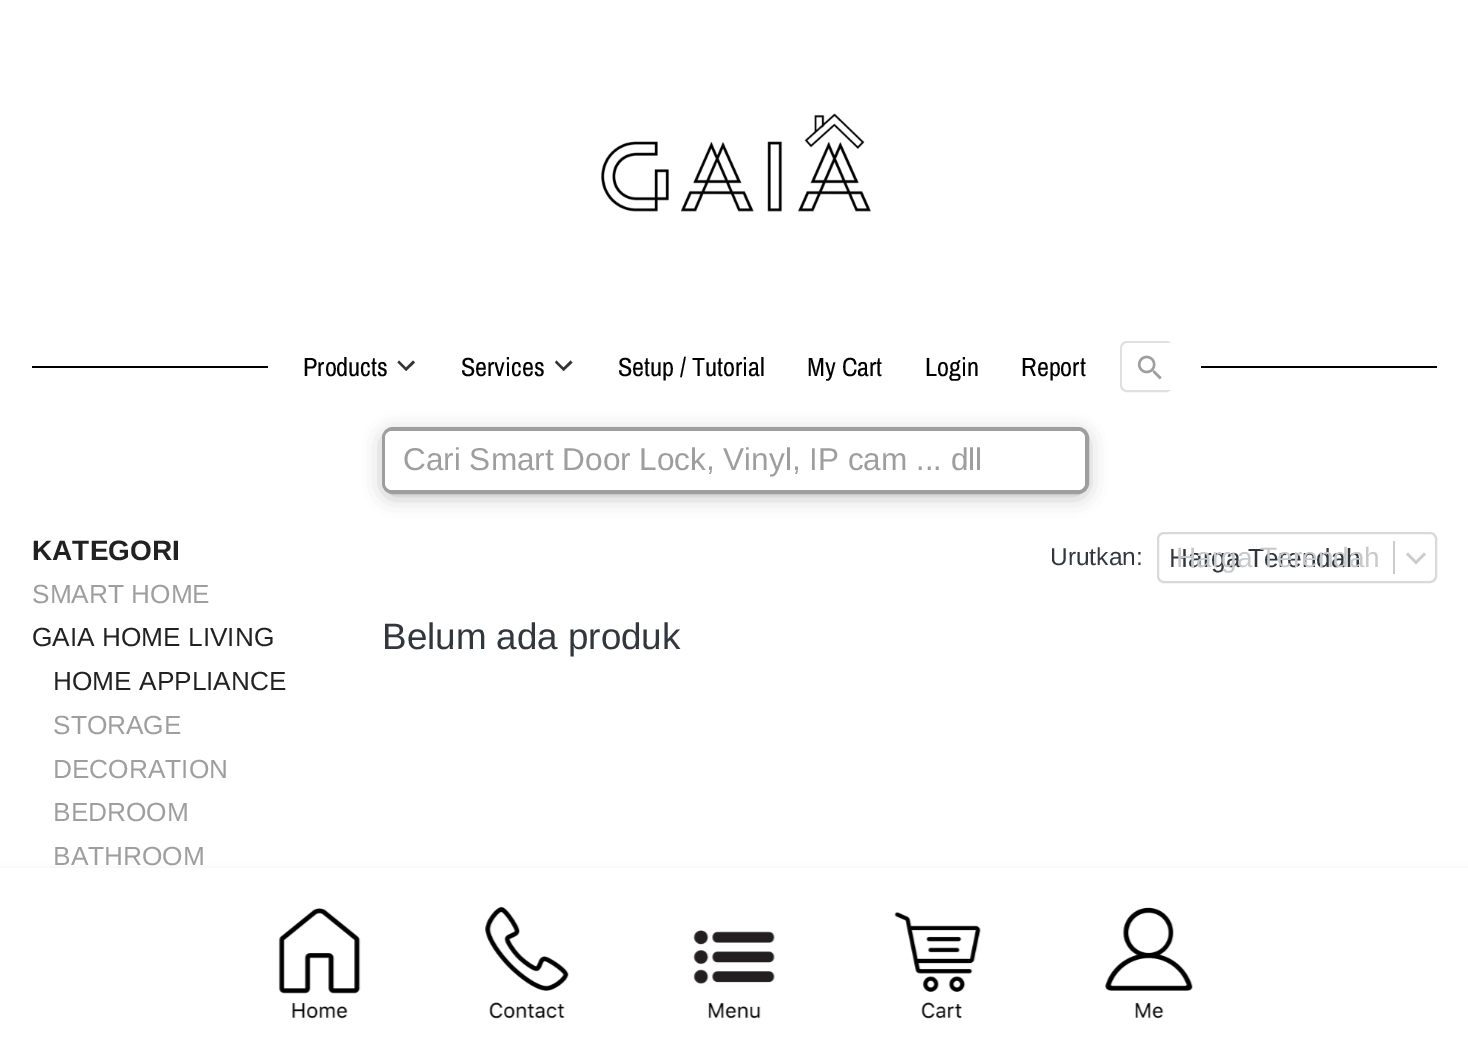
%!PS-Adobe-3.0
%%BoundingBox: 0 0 1468 1061
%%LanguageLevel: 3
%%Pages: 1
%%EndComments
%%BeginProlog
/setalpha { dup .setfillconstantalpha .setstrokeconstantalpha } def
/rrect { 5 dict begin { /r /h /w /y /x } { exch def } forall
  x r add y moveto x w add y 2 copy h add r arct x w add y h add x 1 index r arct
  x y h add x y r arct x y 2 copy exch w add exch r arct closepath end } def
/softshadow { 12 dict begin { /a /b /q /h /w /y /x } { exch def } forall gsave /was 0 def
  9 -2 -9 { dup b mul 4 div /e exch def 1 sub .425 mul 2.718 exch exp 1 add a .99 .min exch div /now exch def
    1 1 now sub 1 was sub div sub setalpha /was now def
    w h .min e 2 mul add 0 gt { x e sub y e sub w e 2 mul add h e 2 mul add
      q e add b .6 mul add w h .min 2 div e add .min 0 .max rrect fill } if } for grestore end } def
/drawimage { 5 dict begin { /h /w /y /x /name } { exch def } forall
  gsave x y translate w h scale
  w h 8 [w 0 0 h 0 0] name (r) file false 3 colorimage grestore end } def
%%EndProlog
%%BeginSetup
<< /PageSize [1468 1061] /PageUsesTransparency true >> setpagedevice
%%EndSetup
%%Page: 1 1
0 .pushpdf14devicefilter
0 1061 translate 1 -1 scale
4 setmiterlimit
1 setgray
0 0 1468 1061 rectfill
(images/1.raw) 601 113 270 99 drawimage
0 setgray
32 366 236 2 rectfill
0.2 setgray
newpath 399 360.5 moveto 397.5 362.5 lineto 406 371 lineto 415 362.5 lineto 413 360.5 lineto 406 367.5 lineto closepath fill
newpath 556.5 360.5 moveto 555 362.5 lineto 563.5 371 lineto 572.5 362.5 lineto 570.5 360.5 lineto 563.5 367.5 lineto closepath fill
0.878 setgray
2 setlinewidth
1121 342 51 49 6 rrect stroke
1 setgray
newpath 1129 343 moveto 1468 343 lineto 1468 390 lineto 1129 390 lineto 1125 390 1122 387 1122 383 curveto 1122 350 lineto 1122 346 1125 343 1129 343 curveto closepath fill
(images/2.raw) 1137 355 25 25 drawimage
0 setgray
1201 366 236 2 rectfill
385 434 700 60 7 10.5 0.16 softshadow
385 436 700 59 7 10.5 0.16 softshadow
0.62 setgray
4 setlinewidth
384 429 703 63 9 rrect stroke
1 setgray
385 431 700 59 7 rrect fill
0.851 setgray
2 setlinewidth
1158 533 278 49 6 rrect stroke
0.8 setgray
1393 541 2 33 rectfill
newpath 1408 552.5 moveto 1406 554.5 lineto 1416 564.5 lineto 1426 554.5 lineto 1424 552.5 lineto 1416 560.5 lineto closepath fill
0 setgray
0 870 1468 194 0 3.5 0.1 softshadow
1 setgray
0 868 1468 193 rectfill
(images/3.raw) 278 908 83 111 drawimage
(images/4.raw) 485 906 84 113 drawimage
(images/5.raw) 693 930 82 89 drawimage
(images/6.raw) 894 912 87 107 drawimage
(images/7.raw) 1105 907 88 112 drawimage
/ArchivoNarrow-Regular [26.25 0 0 -26.25 0 0] selectfont
0 setgray
303 376 moveto (Products) show
461 376 moveto (Services) show
618 376 moveto (Setup / Tutorial) show
807 376 moveto (My Cart) show
925 376 moveto (Login) show
1021 376 moveto (Report) show
/LiberationSans-Regular [31.5 0 0 -31.5 0 0] selectfont
0.62 setgray
403 470 moveto (Cari Smart Door Lock, Vinyl, IP cam ... dll) show
/LiberationSans-Bold [28 0 0 -28 0 0] selectfont
0.129 setgray
32 560 moveto (KATEGORI) show
/LiberationSans-Regular [26.25 0 0 -26.25 0 0] selectfont
0.62 setgray
32 603 moveto (SMART HOME) show
0.129 setgray
32 646 moveto (GAIA HOME LIVING) show
53 690 moveto (HOME APPLIANCE) show
0.62 setgray
53 734 moveto (STORAGE) show
53 778 moveto (DECORATION) show
53 821 moveto (BEDROOM) show
53 865 moveto (BATHROOM) show
/LiberationSans-Regular [24.5 0 0 -24.5 0 0] selectfont
0.192 0.216 0.239 setrgbcolor
1050 565 moveto (Urutkan:) show
/LiberationSans-Regular [26.25 0 0 -26.25 0 0] selectfont
1169 567 moveto (Harga Terendah) show
/LiberationSans-Regular [28 0 0 -28 0 0] selectfont
0.78 0.784 0.792 setrgbcolor
1176 567 moveto (Harga Terendah) show
/LiberationSans-Regular [36.75 0 0 -36.75 0 0] selectfont
0.192 0.216 0.239 setrgbcolor
382 649 moveto (Belum ada produk) show
.poppdf14devicefilter showpage
%%EOF
